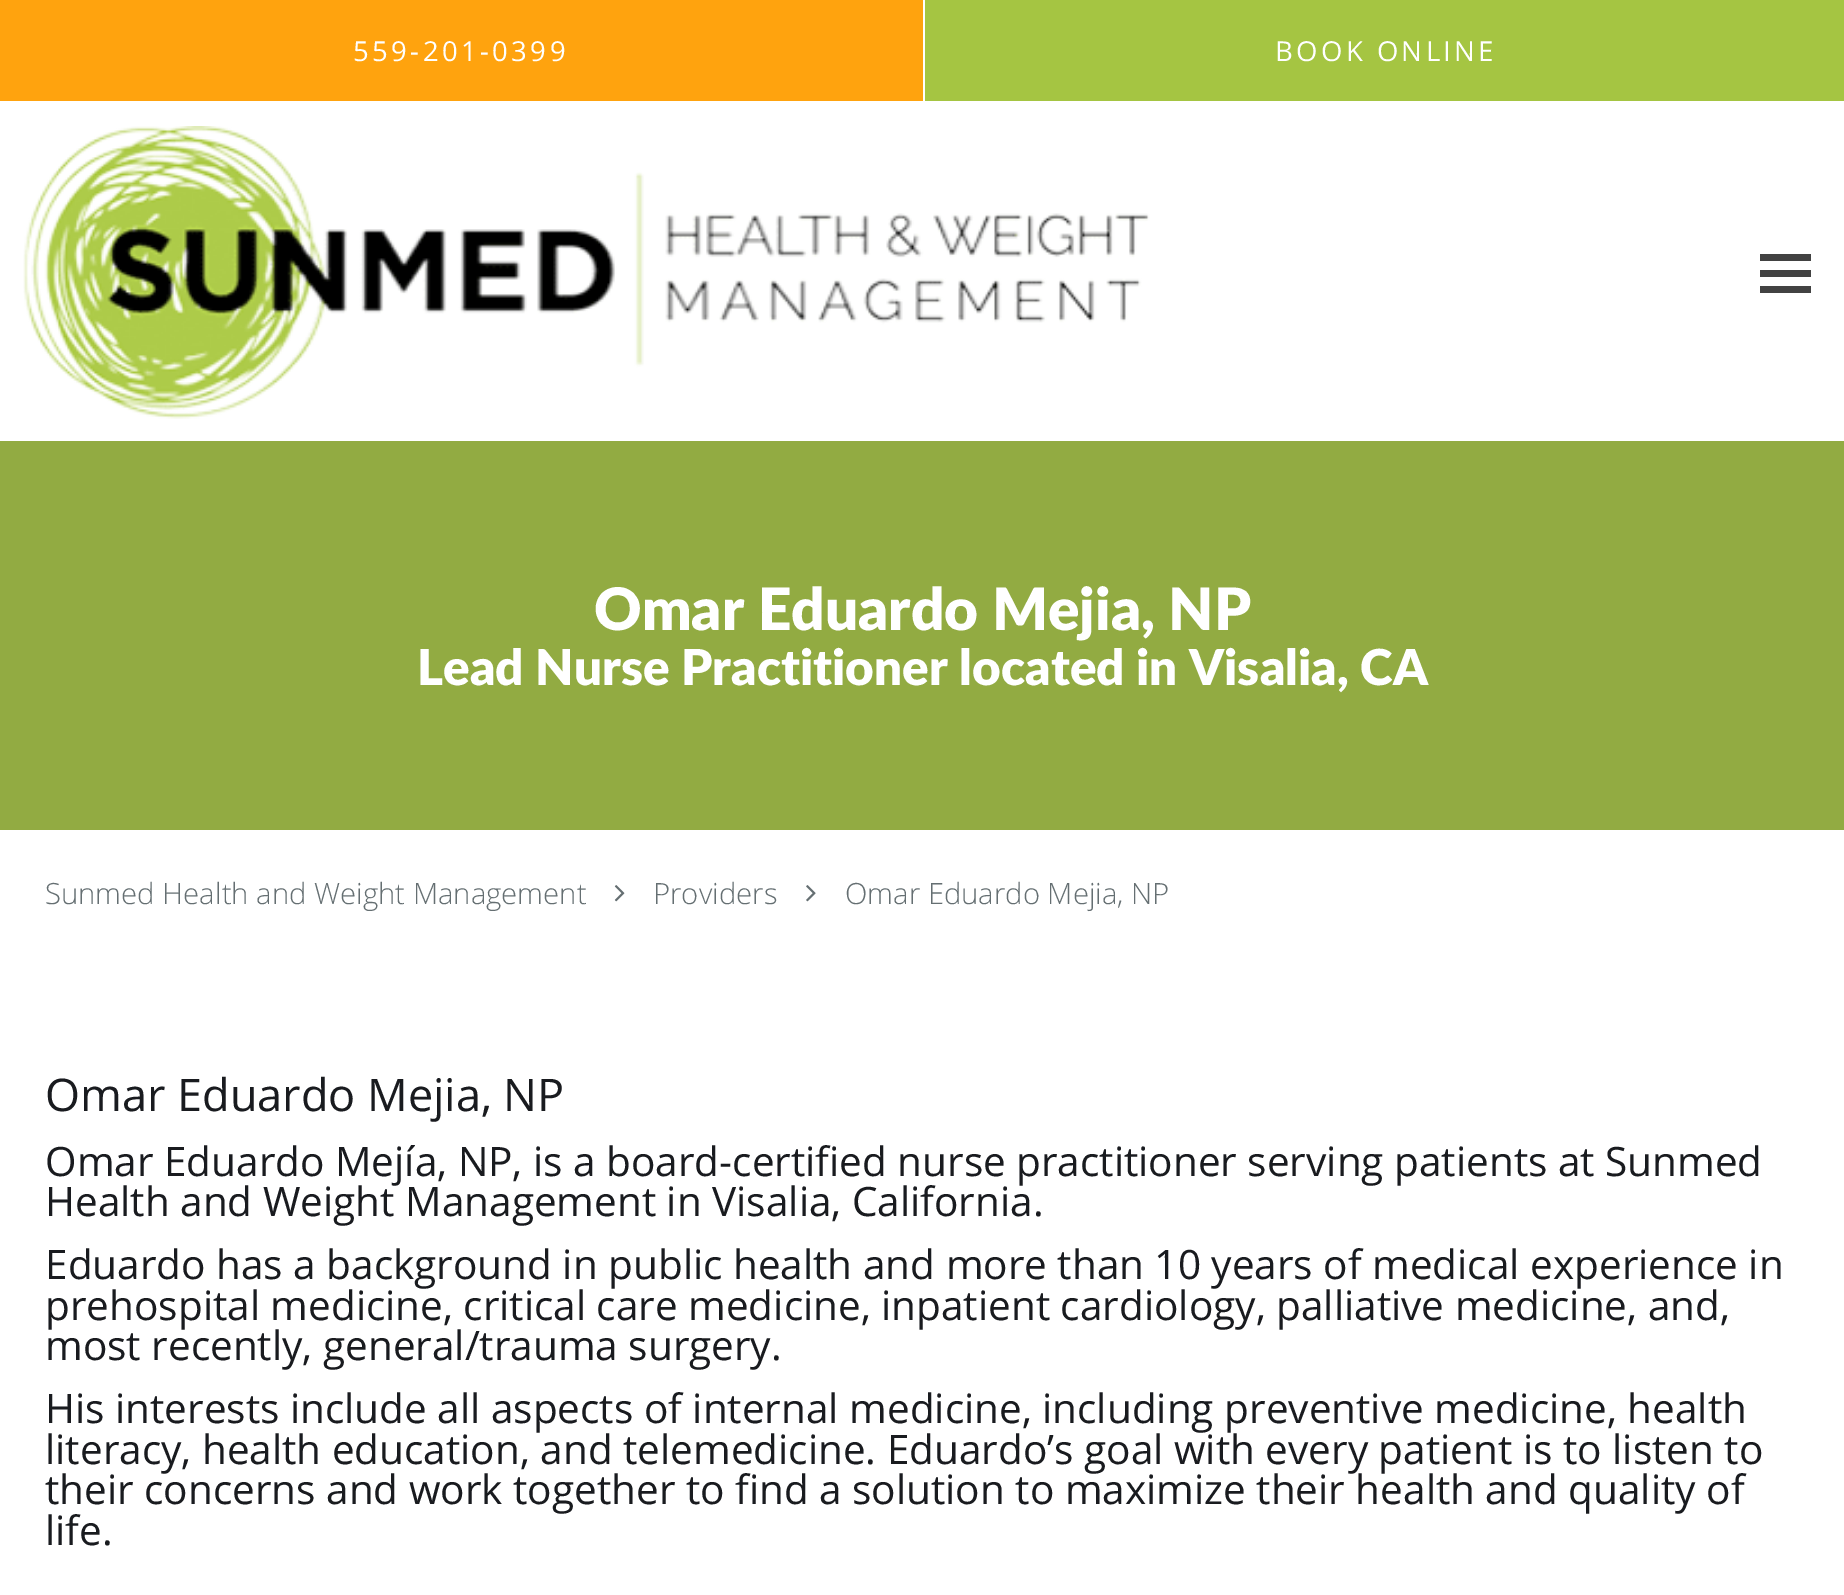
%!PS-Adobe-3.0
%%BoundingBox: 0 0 1844 1595
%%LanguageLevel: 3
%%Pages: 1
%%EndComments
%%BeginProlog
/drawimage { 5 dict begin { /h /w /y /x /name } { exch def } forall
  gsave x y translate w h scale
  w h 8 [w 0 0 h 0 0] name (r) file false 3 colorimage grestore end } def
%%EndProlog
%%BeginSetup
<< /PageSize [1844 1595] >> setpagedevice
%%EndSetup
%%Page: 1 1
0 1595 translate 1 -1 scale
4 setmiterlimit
1 setgray
0 0 1844 1595 rectfill
1 0.639 0.055 setrgbcolor
0 0 923 101 rectfill
0.647 0.773 0.259 setrgbcolor
925 0 919 101 rectfill
(images/1.raw) 23 126 1127 293 drawimage
0.259 setgray
1760 254 51 7 rectfill
1760 270 51 7 rectfill
1760 286 51 7 rectfill
0.573 0.671 0.259 setrgbcolor
0 441 1844 389 rectfill
(images/2.raw) 614 885 11 17 drawimage
(images/3.raw) 806 885 10 17 drawimage
/OpenSans-Regular [27.5 0 0 -27.5 0 0] selectfont
1 setgray
353 61 moveto 3.4 0 (559-201-0399) ashow
1275 61 moveto 3.4 0 (BOOK ONLINE) ashow
/Lato-Black [58.5 0 0 -58.5 0 0] selectfont
594 630 moveto (Omar Eduardo Mejia, NP) show
/Lato-Black [49.5 0 0 -49.5 0 0] selectfont
417 685 moveto (Lead Nurse Practitioner located in Visalia, CA) show
/OpenSans-Light [29.25 0 0 -29.25 0 0] selectfont
0.396 0.435 0.447 setrgbcolor
45 904 moveto (Sunmed Health and Weight Management) show
653 904 moveto (Providers) show
845 904 moveto (Omar Eduardo Mejia, NP) show
/OpenSans-Regular [45 0 0 -45 0 0] selectfont
0.098 0.106 0.122 setrgbcolor
45 1111 moveto (Omar Eduardo Mejia, NP) show
/OpenSans-Regular [40.5 0 0 -40.5 0 0] selectfont
45 1176 moveto (Omar Eduardo Mejía, NP, is a board-certified nurse practitioner serving patients at Sunmed) show
45 1216 moveto (Health and Weight Management in Visalia, California.) show
45 1279 moveto (Eduardo has a background in public health and more than 10 years of medical experience in) show
45 1320 moveto (prehospital medicine, critical care medicine, inpatient cardiology, palliative medicine, and,) show
45 1360 moveto (most recently, general/trauma surgery.) show
45 1423 moveto (His interests include all aspects of internal medicine, including preventive medicine, health) show
45 1464 moveto (literacy, health education, and telemedicine. Eduardo’s goal with every patient is to listen to) show
45 1504 moveto (their concerns and work together to find a solution to maximize their health and quality of) show
45 1545 moveto (life.) show
showpage
%%EOF
